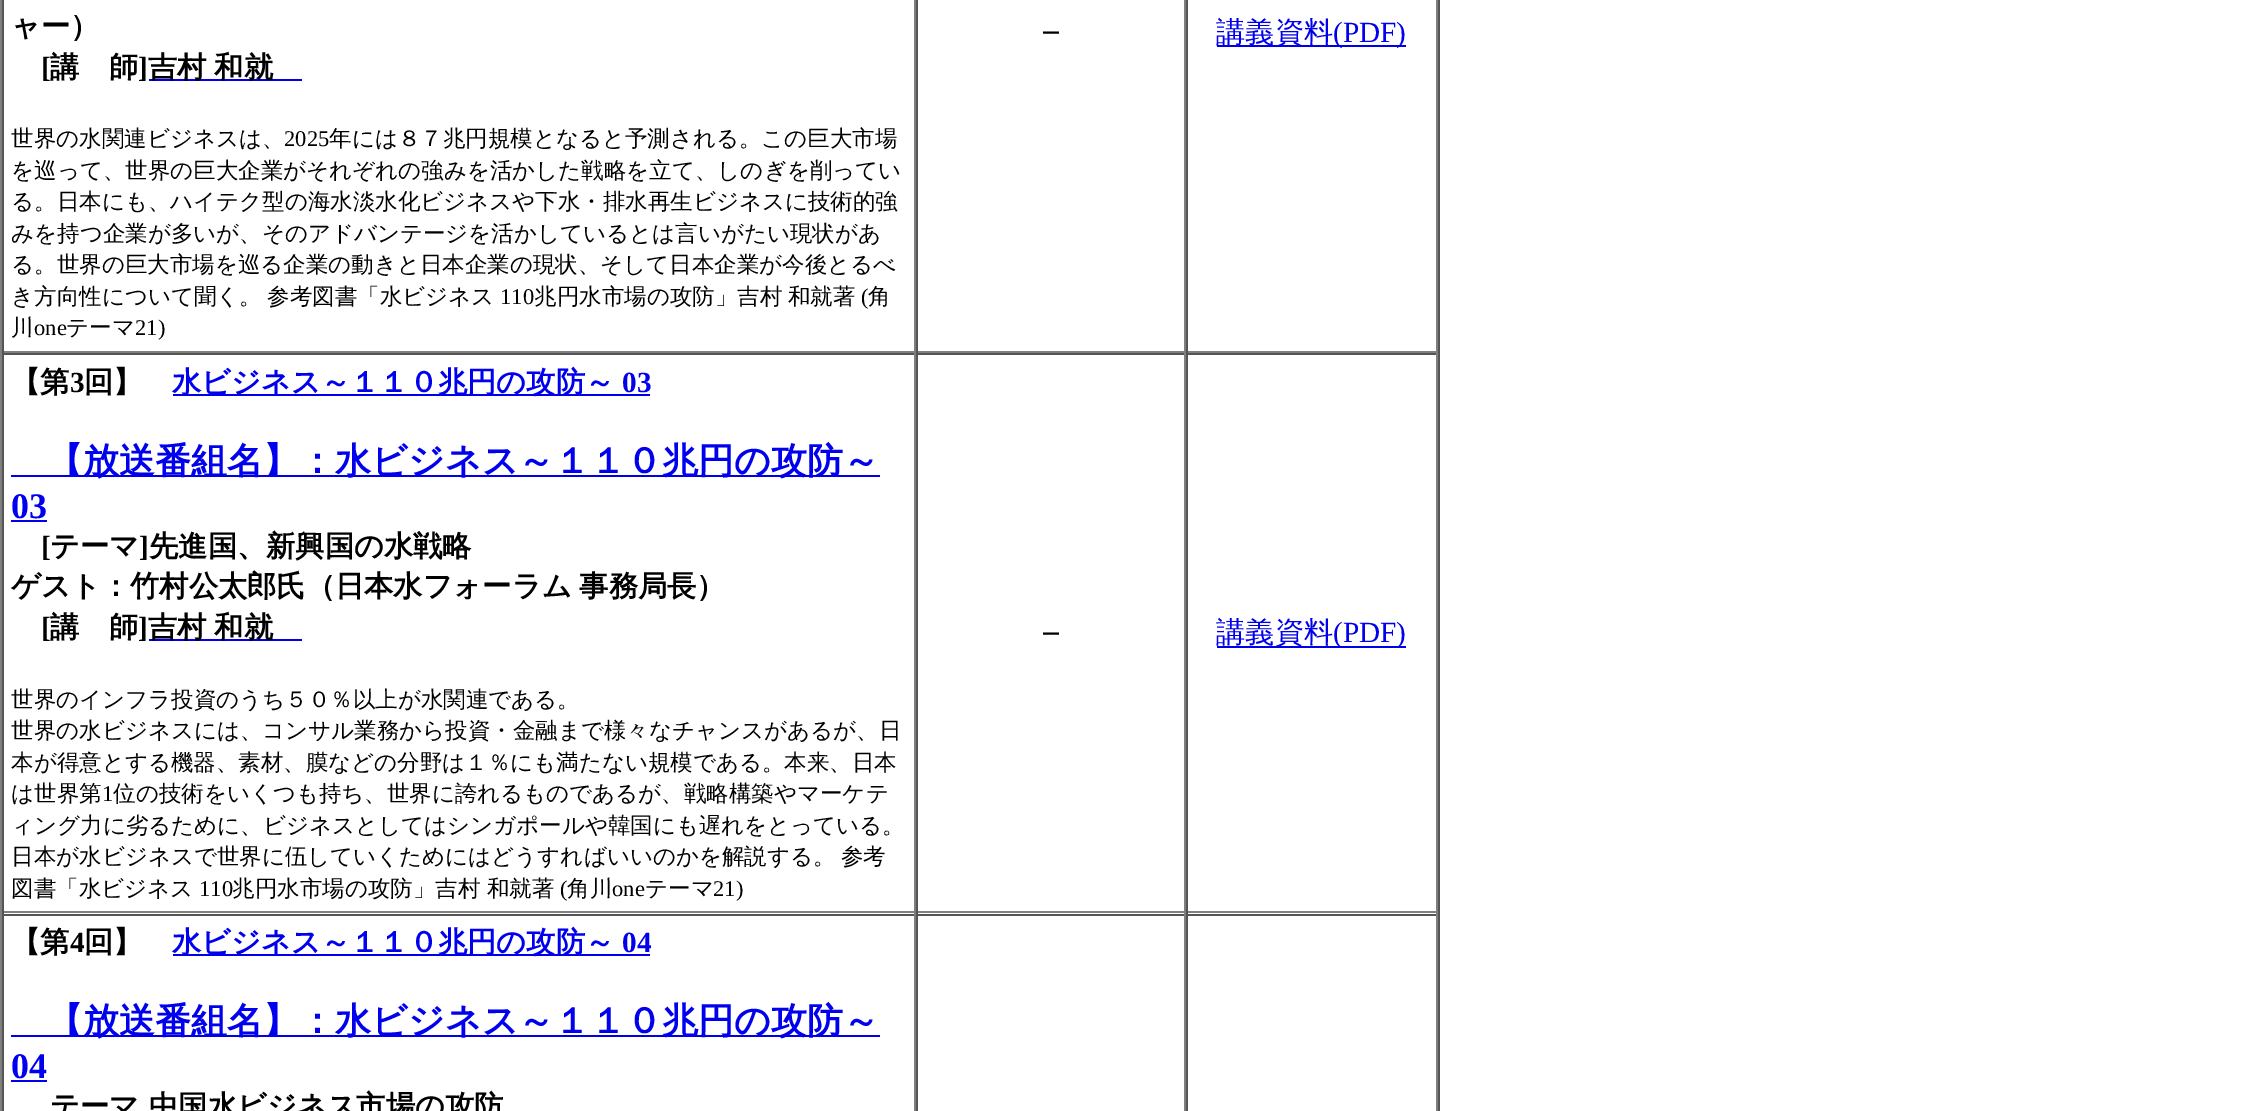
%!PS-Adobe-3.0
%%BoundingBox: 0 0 2259 1111
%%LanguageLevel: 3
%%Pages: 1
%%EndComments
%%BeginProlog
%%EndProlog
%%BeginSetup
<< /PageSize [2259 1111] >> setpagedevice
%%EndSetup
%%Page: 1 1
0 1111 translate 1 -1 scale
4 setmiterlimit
1 setgray
0 0 2259 1111 rectfill
0.333 setgray
1438 0 2 1111 rectfill
0.502 setgray
0 0 2 1111 rectfill
914 0 2 353 rectfill
2 351 914 2 rectfill
0.333 setgray
2 0 2 353 rectfill
0 0 0.933 setrgbcolor
149 79 153 2 rectfill
0.502 setgray
1184 0 2 353 rectfill
916 351 270 2 rectfill
0.333 setgray
916 0 2 353 rectfill
0.502 setgray
1436 0 2 353 rectfill
1186 351 252 2 rectfill
0.333 setgray
1186 0 2 353 rectfill
0 0 0.933 setrgbcolor
1217 45 189 2 rectfill
0.333 setgray
2 353 1436 2 rectfill
0.502 setgray
914 353 2 561 rectfill
2 911 914 2 rectfill
0.333 setgray
2 353 2 561 rectfill
0 0 0.933 setrgbcolor
173 394 477 2 rectfill
11 475 869 2 rectfill
11 520 36 2 rectfill
149 639 153 2 rectfill
0.502 setgray
1184 353 2 561 rectfill
916 911 270 2 rectfill
0.333 setgray
916 353 2 561 rectfill
0.502 setgray
1436 353 2 561 rectfill
1186 911 252 2 rectfill
0.333 setgray
1186 353 2 561 rectfill
0 0 0.933 setrgbcolor
1217 646 189 2 rectfill
0.333 setgray
2 914 1436 2 rectfill
0.502 setgray
914 914 2 197 rectfill
0.333 setgray
2 914 2 197 rectfill
0 0 0.933 setrgbcolor
173 954 477 2 rectfill
11 1035 869 2 rectfill
11 1080 36 2 rectfill
0.502 setgray
1184 914 2 197 rectfill
0.333 setgray
916 914 2 197 rectfill
0.502 setgray
1436 914 2 197 rectfill
0.333 setgray
1186 914 2 197 rectfill
/WenQuanYiZenHei-Bold [29.25 0 0 -29.25 0 0] selectfont
0 setgray
11 36 moveto (ャー）) show
/LiberationSerif-Bold [29.25 0 0 -29.25 0 0] selectfont
41 77 moveto ([) show
/WenQuanYiZenHei-Bold [29.25 0 0 -29.25 0 0] selectfont
50 77 moveto (講　師) show
/LiberationSerif-Bold [29.25 0 0 -29.25 0 0] selectfont
138 77 moveto (]) show
/WenQuanYiZenHei-Bold [29.25 0 0 -29.25 0 0] selectfont
148 77 moveto -1 0 32 (吉村 和就) widthshow
/WenQuanYiZenHei-Medium [22.5 0 0 -22.5 0 0] selectfont
11 146 moveto (世界の水関連ビジネスは、) show
/LiberationSerif-Regular [22.5 0 0 -22.5 0 0] selectfont
284 146 moveto (2025) show
/WenQuanYiZenHei-Medium [22.5 0 0 -22.5 0 0] selectfont
329 146 moveto (年には８７兆円規模となると予測される。この巨大市場) show
11 178 moveto (を巡って、世界の巨大企業がそれぞれの強みを活かした戦略を立て、しのぎを削ってい) show
11 209 moveto (る。日本にも、ハイテク型の海水淡水化ビジネスや下水・排水再生ビジネスに技術的強) show
11 241 moveto (みを持つ企業が多いが、そのアドバンテージを活かしているとは言いがたい現状があ) show
11 272 moveto (る。世界の巨大市場を巡る企業の動きと日本企業の現状、そして日本企業が今後とるべ) show
11 304 moveto -1 0 32 (き方向性について聞く。 参考図書「水ビジネス) widthshow
/LiberationSerif-Regular [22.5 0 0 -22.5 0 0] selectfont
500 304 moveto (110) show
/WenQuanYiZenHei-Medium [22.5 0 0 -22.5 0 0] selectfont
534 304 moveto -1 0 32 (兆円水市場の攻防」吉村 和就著) widthshow
/LiberationSerif-Regular [22.5 0 0 -22.5 0 0] selectfont
861 304 moveto (\() show
/WenQuanYiZenHei-Medium [22.5 0 0 -22.5 0 0] selectfont
868 304 moveto (角) show
11 335 moveto (川) show
/LiberationSerif-Regular [22.5 0 0 -22.5 0 0] selectfont
34 335 moveto (one) show
/WenQuanYiZenHei-Medium [22.5 0 0 -22.5 0 0] selectfont
66 335 moveto (テーマ) show
/LiberationSerif-Regular [22.5 0 0 -22.5 0 0] selectfont
135 335 moveto (21\)) show
/WenQuanYiZenHei-Medium [36 0 0 -36 0 0] selectfont
1033 43 moveto (－) show
/WenQuanYiZenHei-Medium [29.25 0 0 -29.25 0 0] selectfont
0 0 0.933 setrgbcolor
1216 42 moveto (講義資料) show
/LiberationSerif-Regular [29.25 0 0 -29.25 0 0] selectfont
1333 42 moveto (\(PDF\)) show
/WenQuanYiZenHei-Bold [29.25 0 0 -29.25 0 0] selectfont
0 setgray
11 392 moveto (【第) show
/LiberationSerif-Bold [29.25 0 0 -29.25 0 0] selectfont
70 392 moveto (3) show
/WenQuanYiZenHei-Bold [29.25 0 0 -29.25 0 0] selectfont
84 392 moveto (回】) show
0 0 0.933 setrgbcolor
172 392 moveto (水ビジネス～１１０兆円の攻防～) show
/LiberationSerif-Bold [29.25 0 0 -29.25 0 0] selectfont
622 392 moveto (03) show
/WenQuanYiZenHei-Bold [36 0 0 -36 0 0] selectfont
47 473 moveto (【放送番組名】：水ビジネス～１１０兆円の攻防～) show
/LiberationSerif-Bold [36 0 0 -36 0 0] selectfont
11 518 moveto (03) show
/LiberationSerif-Bold [29.25 0 0 -29.25 0 0] selectfont
0 setgray
41 556 moveto ([) show
/WenQuanYiZenHei-Bold [29.25 0 0 -29.25 0 0] selectfont
50 556 moveto (テーマ) show
/LiberationSerif-Bold [29.25 0 0 -29.25 0 0] selectfont
139 556 moveto (]) show
/WenQuanYiZenHei-Bold [29.25 0 0 -29.25 0 0] selectfont
149 556 moveto (先進国、新興国の水戦略) show
11 596 moveto -1 0 32 (ゲスト：竹村公太郎氏（日本水フォーラム 事務局長）) widthshow
/LiberationSerif-Bold [29.25 0 0 -29.25 0 0] selectfont
41 637 moveto ([) show
/WenQuanYiZenHei-Bold [29.25 0 0 -29.25 0 0] selectfont
50 637 moveto (講　師) show
/LiberationSerif-Bold [29.25 0 0 -29.25 0 0] selectfont
138 637 moveto (]) show
/WenQuanYiZenHei-Bold [29.25 0 0 -29.25 0 0] selectfont
148 637 moveto -1 0 32 (吉村 和就) widthshow
/WenQuanYiZenHei-Medium [22.5 0 0 -22.5 0 0] selectfont
11 707 moveto (世界のインフラ投資のうち５０％以上が水関連である。) show
11 738 moveto (世界の水ビジネスには、コンサル業務から投資・金融まで様々なチャンスがあるが、日) show
11 770 moveto (本が得意とする機器、素材、膜などの分野は１％にも満たない規模である。本来、日本) show
11 801 moveto (は世界第) show
/LiberationSerif-Regular [22.5 0 0 -22.5 0 0] selectfont
102 801 moveto (1) show
/WenQuanYiZenHei-Medium [22.5 0 0 -22.5 0 0] selectfont
113 801 moveto (位の技術をいくつも持ち、世界に誇れるものであるが、戦略構築やマーケテ) show
11 833 moveto (ィング力に劣るために、ビジネスとしてはシンガポールや韓国にも遅れをとっている。) show
11 864 moveto -1 0 32 (日本が水ビジネスで世界に伍していくためにはどうすればいいのかを解説する。 参考) widthshow
11 896 moveto (図書「水ビジネス) show
/LiberationSerif-Regular [22.5 0 0 -22.5 0 0] selectfont
199 896 moveto (110) show
/WenQuanYiZenHei-Medium [22.5 0 0 -22.5 0 0] selectfont
232 896 moveto (兆円水市場の攻防」吉村 和就著) show
/LiberationSerif-Regular [22.5 0 0 -22.5 0 0] selectfont
560 896 moveto (\() show
/WenQuanYiZenHei-Medium [22.5 0 0 -22.5 0 0] selectfont
567 896 moveto (角川) show
/LiberationSerif-Regular [22.5 0 0 -22.5 0 0] selectfont
612 896 moveto (one) show
/WenQuanYiZenHei-Medium [22.5 0 0 -22.5 0 0] selectfont
645 896 moveto (テーマ) show
/LiberationSerif-Regular [22.5 0 0 -22.5 0 0] selectfont
713 896 moveto (21\)) show
/WenQuanYiZenHei-Medium [36 0 0 -36 0 0] selectfont
1033 644 moveto (－) show
/WenQuanYiZenHei-Medium [29.25 0 0 -29.25 0 0] selectfont
0 0 0.933 setrgbcolor
1216 642 moveto (講義資料) show
/LiberationSerif-Regular [29.25 0 0 -29.25 0 0] selectfont
1333 642 moveto (\(PDF\)) show
/WenQuanYiZenHei-Bold [29.25 0 0 -29.25 0 0] selectfont
0 setgray
11 952 moveto (【第) show
/LiberationSerif-Bold [29.25 0 0 -29.25 0 0] selectfont
70 952 moveto (4) show
/WenQuanYiZenHei-Bold [29.25 0 0 -29.25 0 0] selectfont
84 952 moveto (回】) show
0 0 0.933 setrgbcolor
172 952 moveto (水ビジネス～１１０兆円の攻防～) show
/LiberationSerif-Bold [29.25 0 0 -29.25 0 0] selectfont
622 952 moveto (04) show
/WenQuanYiZenHei-Bold [36 0 0 -36 0 0] selectfont
47 1033 moveto (【放送番組名】：水ビジネス～１１０兆円の攻防～) show
/LiberationSerif-Bold [36 0 0 -36 0 0] selectfont
11 1078 moveto (04) show
/WenQuanYiZenHei-Bold [29.25 0 0 -29.25 0 0] selectfont
0 setgray
50 1116 moveto (テーマ) show
149 1116 moveto (中国水ビジネス市場の攻防) show
showpage
%%EOF
